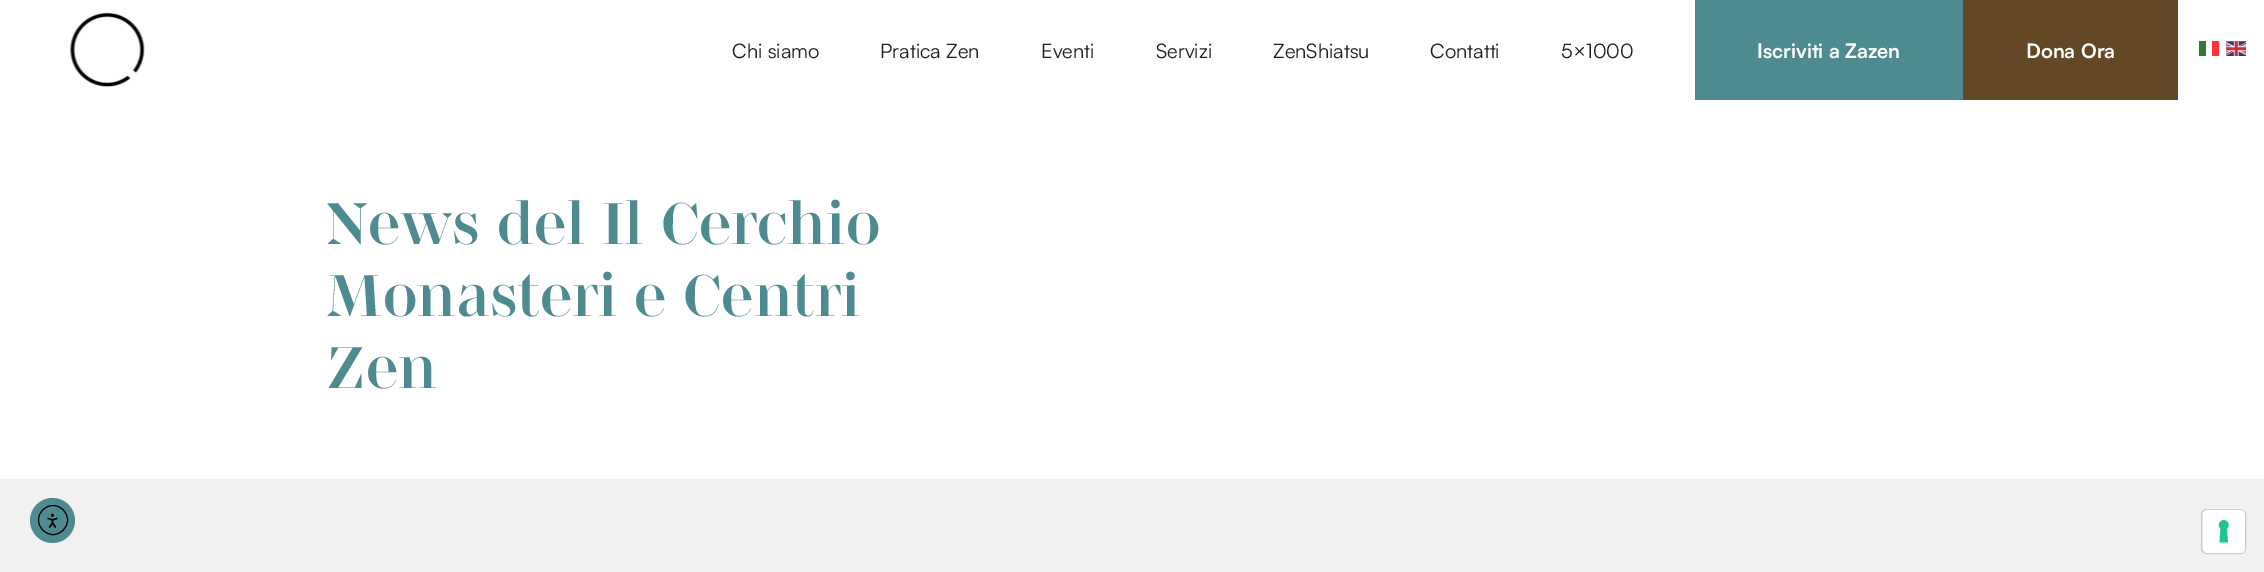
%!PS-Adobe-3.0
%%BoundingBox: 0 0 2264 572
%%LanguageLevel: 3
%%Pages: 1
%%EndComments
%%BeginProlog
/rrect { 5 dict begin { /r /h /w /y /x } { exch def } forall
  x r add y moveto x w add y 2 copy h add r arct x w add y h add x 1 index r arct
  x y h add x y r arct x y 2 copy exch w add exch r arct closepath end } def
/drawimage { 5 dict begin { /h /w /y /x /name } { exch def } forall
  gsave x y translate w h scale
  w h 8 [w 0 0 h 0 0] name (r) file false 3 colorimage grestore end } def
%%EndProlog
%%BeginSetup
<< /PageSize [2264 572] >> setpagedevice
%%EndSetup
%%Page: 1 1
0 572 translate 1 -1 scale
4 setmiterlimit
1 setgray
0 0 2264 572 rectfill
(images/1.raw) 69 12 76 75 drawimage
0.306 0.545 0.565 setrgbcolor
1695 0 268 100 rectfill
0.392 0.278 0.141 setrgbcolor
1963 0 215 100 rectfill
0.945 setgray
0 479 2264 93 rectfill
0.2 0.475 0.2 setrgbcolor
2199 41 7 15 rectfill
0.992 0.2 0.2 setrgbcolor
2212 41 7 15 rectfill
(images/2.raw) 2226 41 20 15 drawimage
0.306 0.545 0.565 setrgbcolor
newpath 52.5 520.5 22.5 0 360 arc closepath fill
0 setgray
newpath 53 520 14.5 0 360 arc closepath stroke
(images/3.raw) 47 513 11 15 drawimage
0.804 setgray
2201.5 509.5 44 44 5.5 rrect stroke
1 setgray
2203 510 42 43 5 rrect fill
(images/4.raw) 2218 520 11 23 drawimage
/Satoshi-Regular [20 0 0 -20 0 0] selectfont
0.122 0.122 0.118 setrgbcolor
732 58 moveto (Chi siamo) show
880 58 moveto (Pratica Zen) show
1041 58 moveto (Eventi) show
1156 58 moveto (Servizi) show
1273 58 moveto (ZenShiatsu) show
1430 58 moveto (Contatti) show
1561 58 moveto (5×1000) show
/Satoshi-Bold [20 0 0 -20 0 0] selectfont
1 setgray
1757 58 moveto (Iscriviti a Zazen) show
2026 58 moveto (Dona Ora) show
/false-Regular [60 0 0 -60 0 0] selectfont
0.306 0.545 0.565 setrgbcolor
326 244 moveto (News del Il Cerchio) show
326 316 moveto (Monasteri e Centri) show
326 388 moveto (Zen) show
showpage
%%EOF
